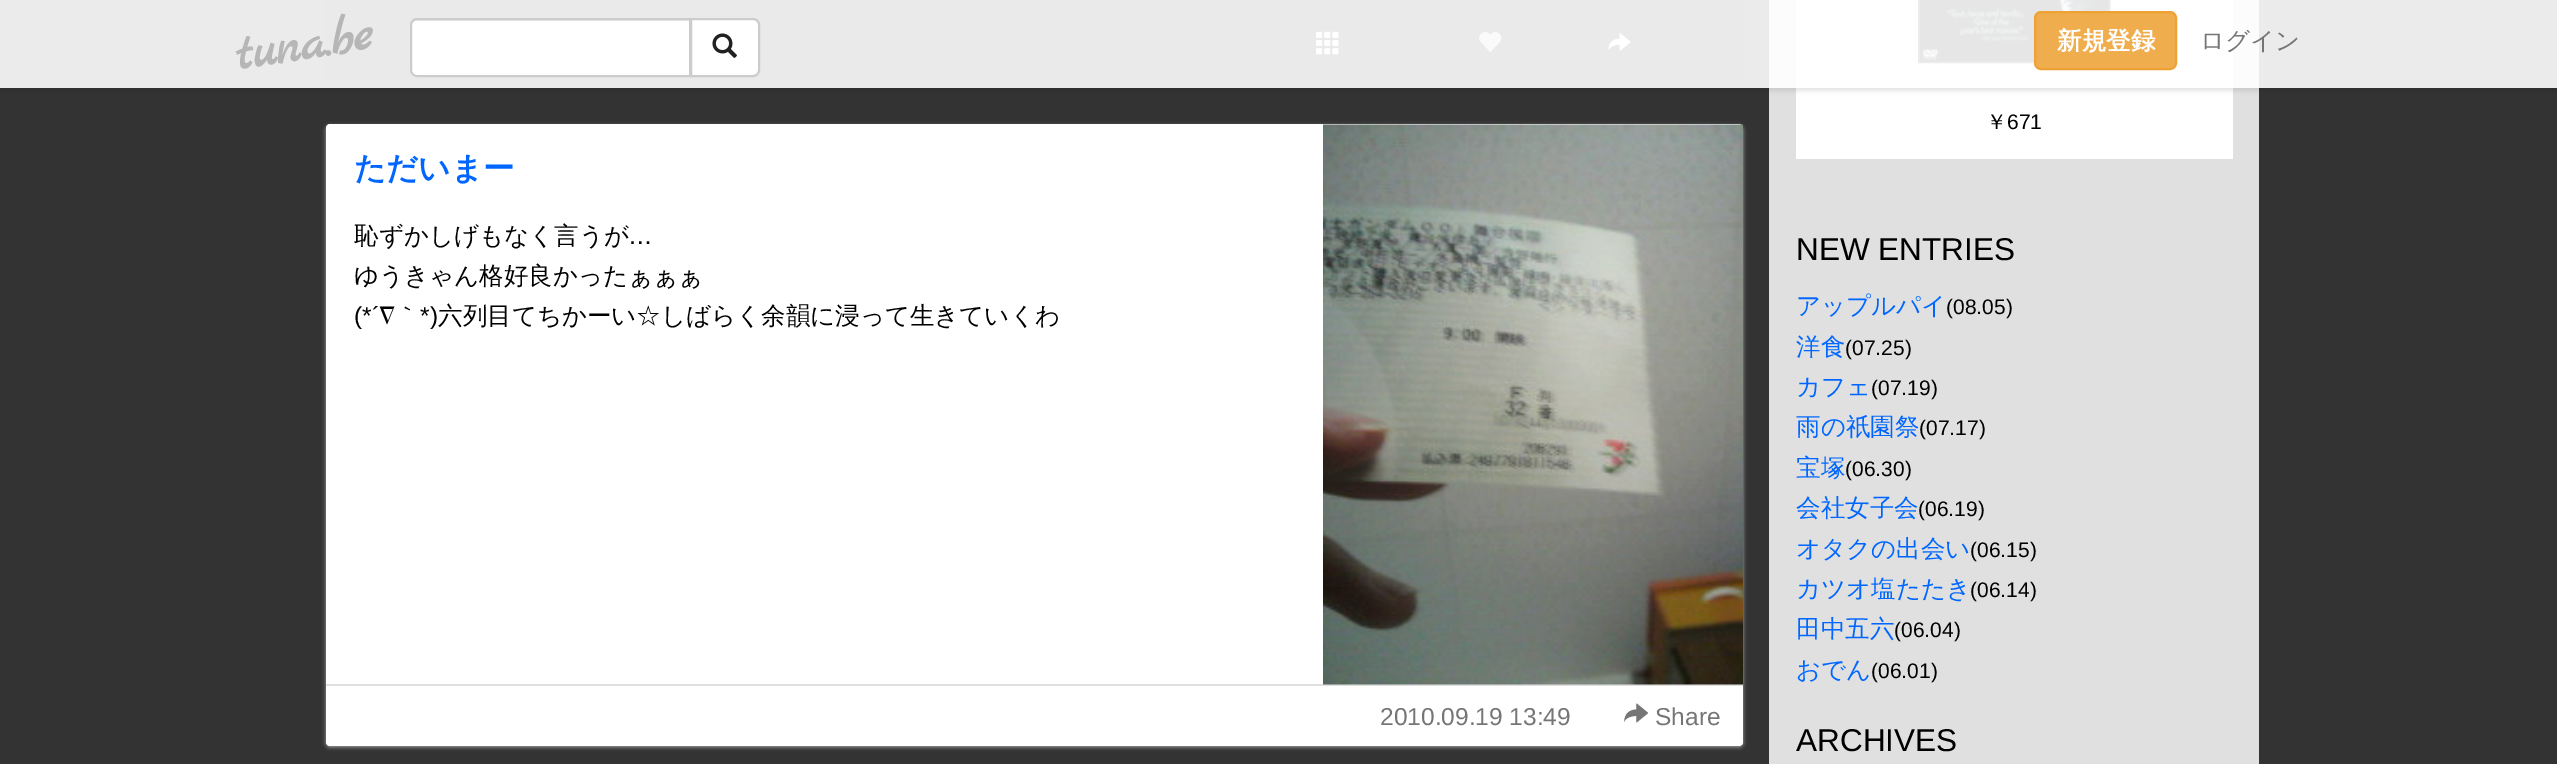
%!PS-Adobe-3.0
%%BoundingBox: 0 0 2557 764
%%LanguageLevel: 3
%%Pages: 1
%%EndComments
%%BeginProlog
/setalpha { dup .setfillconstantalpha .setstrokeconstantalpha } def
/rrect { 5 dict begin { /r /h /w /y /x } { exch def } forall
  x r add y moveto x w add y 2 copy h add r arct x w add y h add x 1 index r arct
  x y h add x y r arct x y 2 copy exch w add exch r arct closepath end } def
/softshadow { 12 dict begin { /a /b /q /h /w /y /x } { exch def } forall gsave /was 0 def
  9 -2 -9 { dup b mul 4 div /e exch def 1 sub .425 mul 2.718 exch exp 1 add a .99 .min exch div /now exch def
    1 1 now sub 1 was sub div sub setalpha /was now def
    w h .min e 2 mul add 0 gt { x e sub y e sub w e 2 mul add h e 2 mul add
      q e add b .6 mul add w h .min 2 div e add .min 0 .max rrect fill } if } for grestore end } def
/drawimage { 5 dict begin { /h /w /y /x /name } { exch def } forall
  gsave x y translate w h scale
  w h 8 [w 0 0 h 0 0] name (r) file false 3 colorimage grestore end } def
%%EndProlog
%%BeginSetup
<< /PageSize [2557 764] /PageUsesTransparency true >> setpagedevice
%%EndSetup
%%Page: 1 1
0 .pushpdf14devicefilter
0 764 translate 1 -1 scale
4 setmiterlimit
0.2 setgray
0 0 2557 764 rectfill
0.161 setgray
326 0 1417 81 rectfill
(images/2.raw) 1316 31 23 24 drawimage
(images/3.raw) 1479 32 23 21 drawimage
(images/4.raw) 1608 33 23 18 drawimage
0.878 setgray
1769 0 490 764 rectfill
1 setgray
1796 0 437 159 rectfill
(images/7.raw) 1918 0 193 64 drawimage
gsave
newpath 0 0 moveto 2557 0 lineto 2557 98 lineto 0 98 lineto closepath 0 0 moveto 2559 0 lineto 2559 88 lineto 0 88 lineto closepath eoclip newpath
0 setgray
0 4 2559 87 0 2 0.1 softshadow
grestore
0.9 setalpha
0 0 2557 88 rectfill
1 setalpha
newpath 417 18 moveto 691 18 lineto 691 77 lineto 417 77 lineto 413 77 410 74 410 70 curveto 410 25 lineto 410 21 413 18 417 18 curveto closepath fill
0.925 setgray
newpath 416 21 moveto 690 21 lineto 690 19 lineto 415 19 lineto 411 20 411 23 411 26 curveto 411 23 414 21 416 21 curveto closepath fill
0.8 setgray
2 setlinewidth
newpath 417 19 moveto 690 19 lineto 690 76 lineto 417 76 lineto 413.5 76 411 73.5 411 70 curveto 411 25 lineto 411 21.5 413.5 19 417 19 curveto closepath stroke
1 setgray
newpath 691 19 moveto 753 19 lineto 756.5 19 759 21.5 759 25 curveto 759 70 lineto 759 73.5 756.5 76 753 76 curveto 691 76 lineto closepath gsave fill grestore
0.8 setgray
stroke
(images/1.raw) 712 33 25 25 drawimage
0.941 0.678 0.306 setrgbcolor
2035 12 141 57 6 rrect gsave fill grestore
0.933 0.635 0.212 setrgbcolor
stroke
0.667 setgray
326 126 1417 621 4 2 1 softshadow
1 setgray
326 124 1417 622 4 rrect fill
0.878 setgray
326 684 1417 2 rectfill
(images/5.raw) 1323 124 420 561 drawimage
(images/6.raw) 1624 703 24 20 drawimage
/MarckScript-Bold [52.5 0 0 -52.5 0 0] selectfont
0.714 setgray
gsave 238 70 translate -9 rotate 0 0 moveto (tuna.be) show grestore
/WenQuanYiZenHei-Bold [24.5 0 0 -24.5 0 0] selectfont
1 setgray
2057 49 moveto (新規登録) show
/WenQuanYiZenHei-Medium [24.5 0 0 -24.5 0 0] selectfont
0.459 setgray
2200 49 moveto (ログイン) show
/WenQuanYiZenHei-Bold [31.5 0 0 -31.5 0 0] selectfont
0 0.4 1 setrgbcolor
354 179 moveto (ただいまー) show
/WenQuanYiZenHei-Medium [24.5 0 0 -24.5 0 0] selectfont
0 setgray
354 244 moveto (恥ずかしげもなく言うが) show
/LiberationSans-Regular [24.5 0 0 -24.5 0 0] selectfont
628 244 moveto (…) show
/WenQuanYiZenHei-Medium [24.5 0 0 -24.5 0 0] selectfont
354 284 moveto (ゆうきゃん格好良かったぁぁぁ) show
/LiberationSans-Regular [24.5 0 0 -24.5 0 0] selectfont
354 324 moveto (\(*´) show
/WenQuanYiZenHei-Medium [24.5 0 0 -24.5 0 0] selectfont
379 324 moveto (∇｀) show
/LiberationSans-Regular [24.5 0 0 -24.5 0 0] selectfont
420 324 moveto (*\)) show
/WenQuanYiZenHei-Medium [24.5 0 0 -24.5 0 0] selectfont
438 324 moveto (六列目てちかーい☆しばらく余韻に浸って生きていくわ) show
/LiberationSans-Regular [24.5 0 0 -24.5 0 0] selectfont
0.459 setgray
1380 725 moveto (2010.09.19 13:49) show
1655 725 moveto (Share) show
/WenQuanYiZenHei-Medium [21 0 0 -21 0 0] selectfont
0 setgray
1986 129 moveto (￥) show
/LiberationSans-Regular [21 0 0 -21 0 0] selectfont
2007 129 moveto (671) show
/LiberationSans-Regular [31.5 0 0 -31.5 0 0] selectfont
1796 260 moveto (NEW ENTRIES) show
/WenQuanYiZenHei-Medium [24.5 0 0 -24.5 0 0] selectfont
0 0.4 1 setrgbcolor
1796 314 moveto (アップルパイ) show
/LiberationSans-Regular [21 0 0 -21 0 0] selectfont
0 setgray
1946 314 moveto (\(08.05\)) show
/WenQuanYiZenHei-Medium [24.5 0 0 -24.5 0 0] selectfont
0 0.4 1 setrgbcolor
1796 355 moveto (洋食) show
/LiberationSans-Regular [21 0 0 -21 0 0] selectfont
0 setgray
1845 355 moveto (\(07.25\)) show
/WenQuanYiZenHei-Medium [24.5 0 0 -24.5 0 0] selectfont
0 0.4 1 setrgbcolor
1796 395 moveto (カフェ) show
/LiberationSans-Regular [21 0 0 -21 0 0] selectfont
0 setgray
1871 395 moveto (\(07.19\)) show
/WenQuanYiZenHei-Medium [24.5 0 0 -24.5 0 0] selectfont
0 0.4 1 setrgbcolor
1796 435 moveto (雨の祇園祭) show
/LiberationSans-Regular [21 0 0 -21 0 0] selectfont
0 setgray
1919 435 moveto (\(07.17\)) show
/WenQuanYiZenHei-Medium [24.5 0 0 -24.5 0 0] selectfont
0 0.4 1 setrgbcolor
1796 476 moveto (宝塚) show
/LiberationSans-Regular [21 0 0 -21 0 0] selectfont
0 setgray
1845 476 moveto (\(06.30\)) show
/WenQuanYiZenHei-Medium [24.5 0 0 -24.5 0 0] selectfont
0 0.4 1 setrgbcolor
1796 516 moveto (会社女子会) show
/LiberationSans-Regular [21 0 0 -21 0 0] selectfont
0 setgray
1918 516 moveto (\(06.19\)) show
/WenQuanYiZenHei-Medium [24.5 0 0 -24.5 0 0] selectfont
0 0.4 1 setrgbcolor
1796 557 moveto (オタクの出会い) show
/LiberationSans-Regular [21 0 0 -21 0 0] selectfont
0 setgray
1970 557 moveto (\(06.15\)) show
/WenQuanYiZenHei-Medium [24.5 0 0 -24.5 0 0] selectfont
0 0.4 1 setrgbcolor
1796 597 moveto (カツオ塩たたき) show
/LiberationSans-Regular [21 0 0 -21 0 0] selectfont
0 setgray
1970 597 moveto (\(06.14\)) show
/WenQuanYiZenHei-Medium [24.5 0 0 -24.5 0 0] selectfont
0 0.4 1 setrgbcolor
1796 637 moveto (田中五六) show
/LiberationSans-Regular [21 0 0 -21 0 0] selectfont
0 setgray
1894 637 moveto (\(06.04\)) show
/WenQuanYiZenHei-Medium [24.5 0 0 -24.5 0 0] selectfont
0 0.4 1 setrgbcolor
1796 678 moveto (おでん) show
/LiberationSans-Regular [21 0 0 -21 0 0] selectfont
0 setgray
1871 678 moveto (\(06.01\)) show
/LiberationSans-Regular [31.5 0 0 -31.5 0 0] selectfont
1796 751 moveto (ARCHIVES) show
.poppdf14devicefilter showpage
%%EOF
